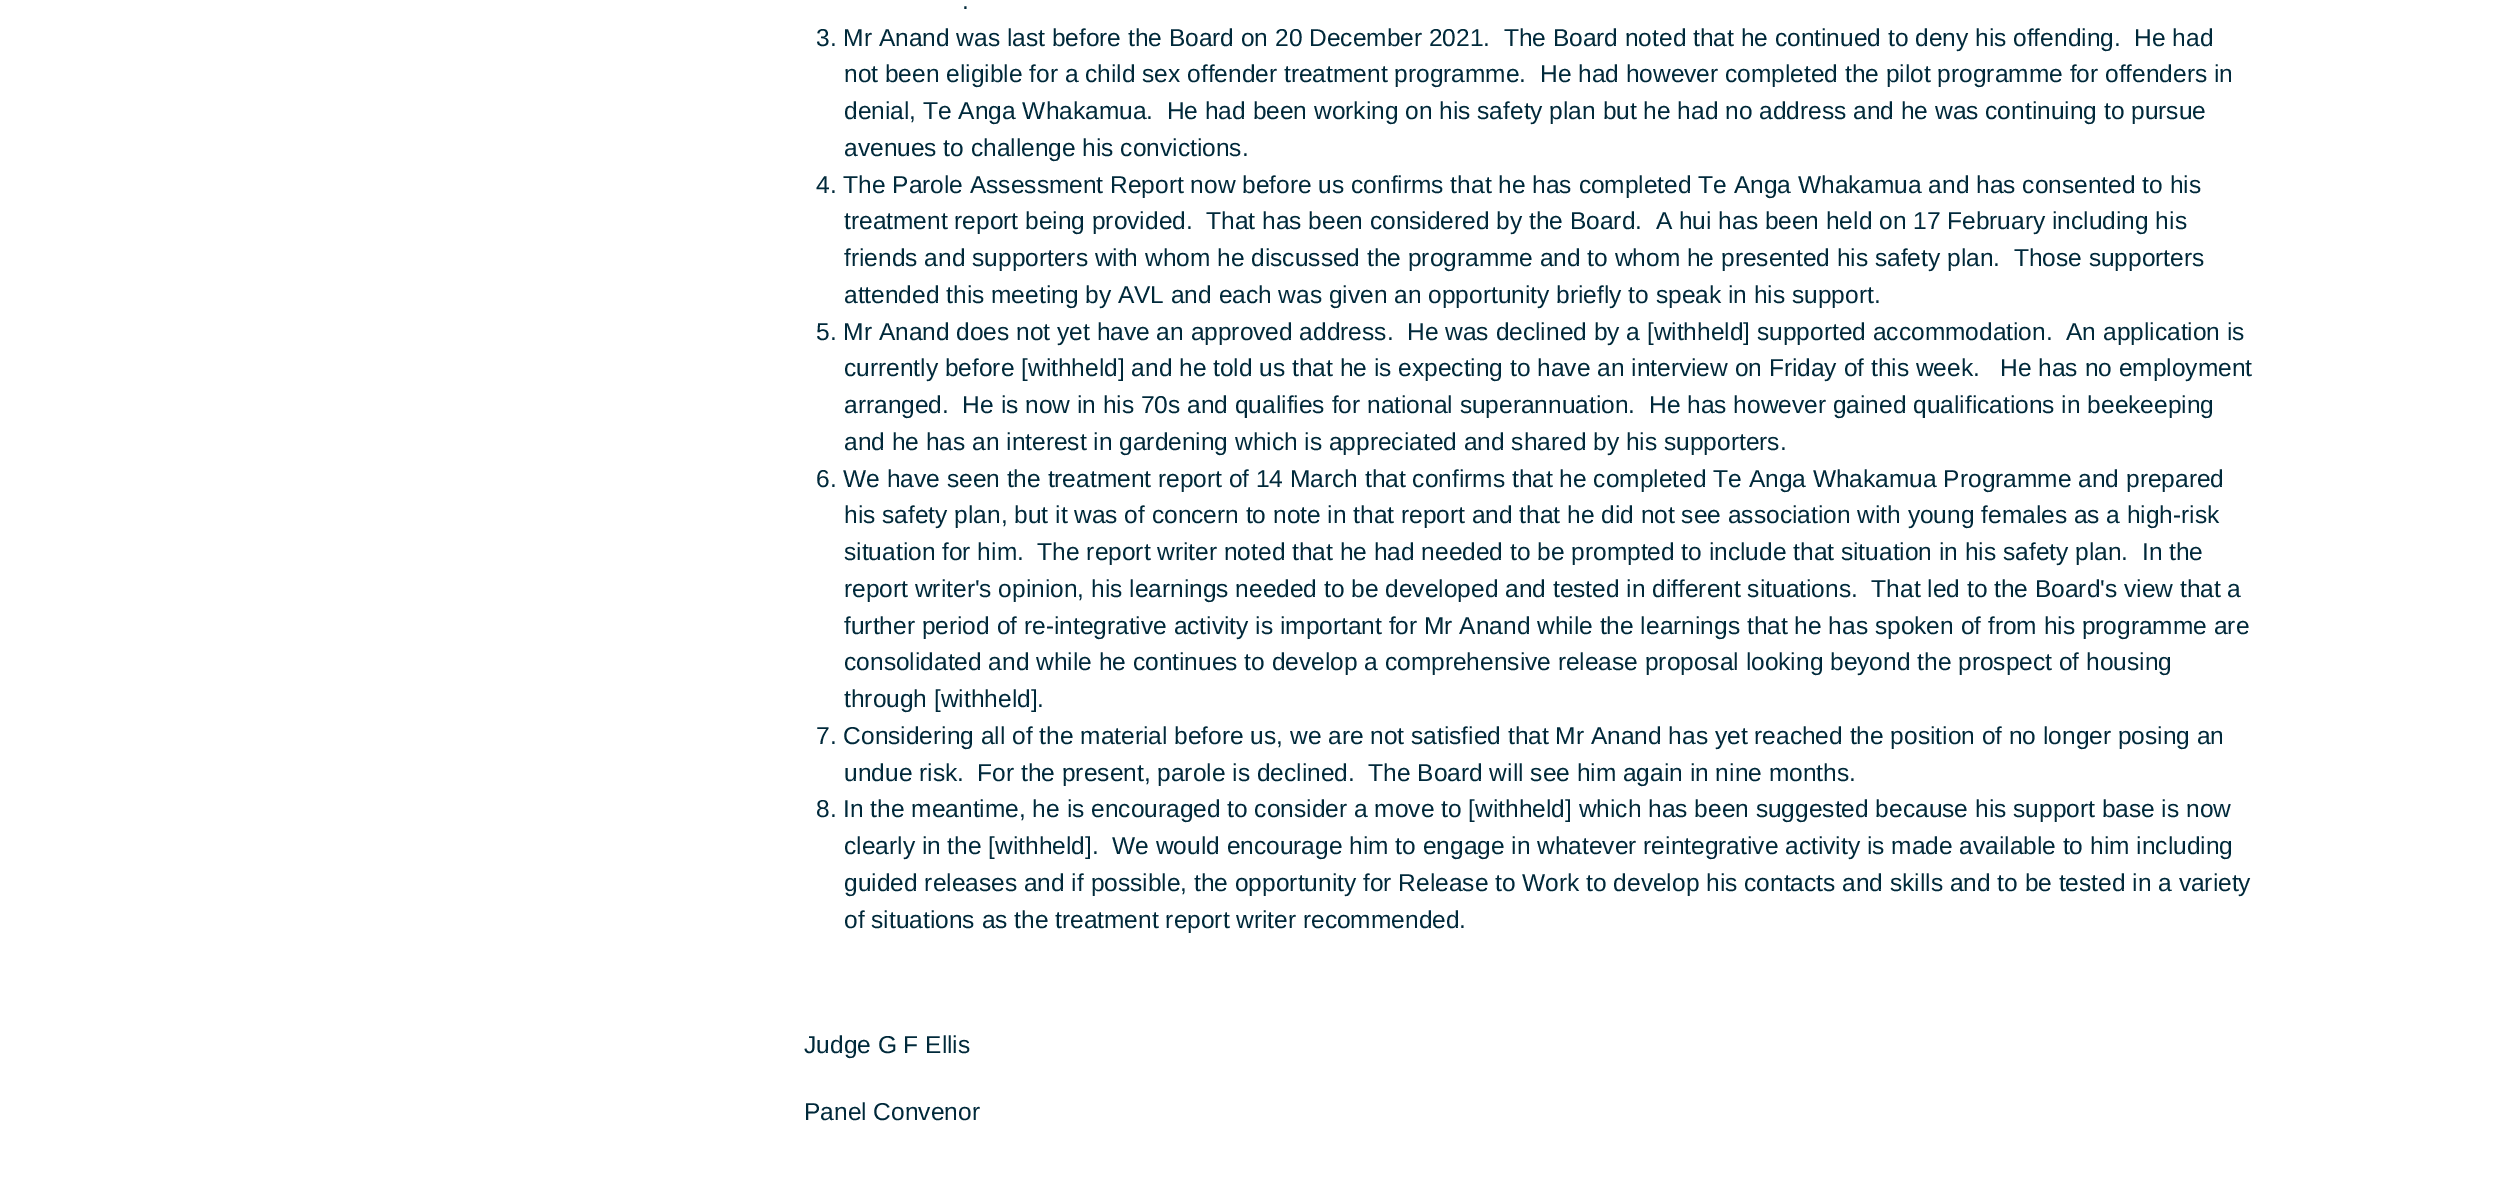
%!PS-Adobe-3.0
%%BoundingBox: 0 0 2508 1186
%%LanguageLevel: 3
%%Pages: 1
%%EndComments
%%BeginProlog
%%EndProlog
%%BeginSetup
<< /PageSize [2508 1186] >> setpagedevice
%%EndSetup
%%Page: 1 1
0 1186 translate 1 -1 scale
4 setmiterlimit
1 setgray
0 0 2508 1186 rectfill
/LiberationSans-Regular [24.5 0 0 -24.5 0 0] selectfont
0 0.161 0.227 setrgbcolor
962 9 moveto (.) show
816 46 moveto (3. Mr Anand was last before the Board on 20 December 2021.  The Board noted that he continued to deny his offending.  He had) show
844 82 moveto (not been eligible for a child sex offender treatment programme.  He had however completed the pilot programme for offenders in) show
844 119 moveto (denial, Te Anga Whakamua.  He had been working on his safety plan but he had no address and he was continuing to pursue) show
844 156 moveto (avenues to challenge his convictions.) show
816 193 moveto (4. The Parole Assessment Report now before us confirms that he has completed Te Anga Whakamua and has consented to his) show
844 229 moveto (treatment report being provided.  That has been considered by the Board.  A hui has been held on 17 February including his) show
844 266 moveto (friends and supporters with whom he discussed the programme and to whom he presented his safety plan.  Those supporters) show
844 303 moveto (attended this meeting by AVL and each was given an opportunity briefly to speak in his support.) show
816 340 moveto (5. Mr Anand does not yet have an approved address.  He was declined by a [withheld] supported accommodation.  An application is) show
844 376 moveto (currently before [withheld] and he told us that he is expecting to have an interview on Friday of this week.   He has no employment) show
844 413 moveto (arranged.  He is now in his 70s and qualifies for national superannuation.  He has however gained qualifications in beekeeping) show
844 450 moveto (and he has an interest in gardening which is appreciated and shared by his supporters.) show
816 487 moveto (6. We have seen the treatment report of 14 March that confirms that he completed Te Anga Whakamua Programme and prepared) show
844 523 moveto (his safety plan, but it was of concern to note in that report and that he did not see association with young females as a high-risk) show
844 560 moveto (situation for him.  The report writer noted that he had needed to be prompted to include that situation in his safety plan.  In the) show
844 597 moveto (report writer's opinion, his learnings needed to be developed and tested in different situations.  That led to the Board's view that a) show
844 634 moveto (further period of re-integrative activity is important for Mr Anand while the learnings that he has spoken of from his programme are) show
844 670 moveto (consolidated and while he continues to develop a comprehensive release proposal looking beyond the prospect of housing) show
844 707 moveto (through [withheld].) show
816 744 moveto (7. Considering all of the material before us, we are not satisfied that Mr Anand has yet reached the position of no longer posing an) show
844 781 moveto (undue risk.  For the present, parole is declined.  The Board will see him again in nine months.) show
816 817 moveto (8. In the meantime, he is encouraged to consider a move to [withheld] which has been suggested because his support base is now) show
844 854 moveto (clearly in the [withheld].  We would encourage him to engage in whatever reintegrative activity is made available to him including) show
844 891 moveto (guided releases and if possible, the opportunity for Release to Work to develop his contacts and skills and to be tested in a variety) show
844 928 moveto (of situations as the treatment report writer recommended.) show
804 1053 moveto (Judge G F Ellis) show
804 1120 moveto (Panel Convenor) show
showpage
%%EOF
